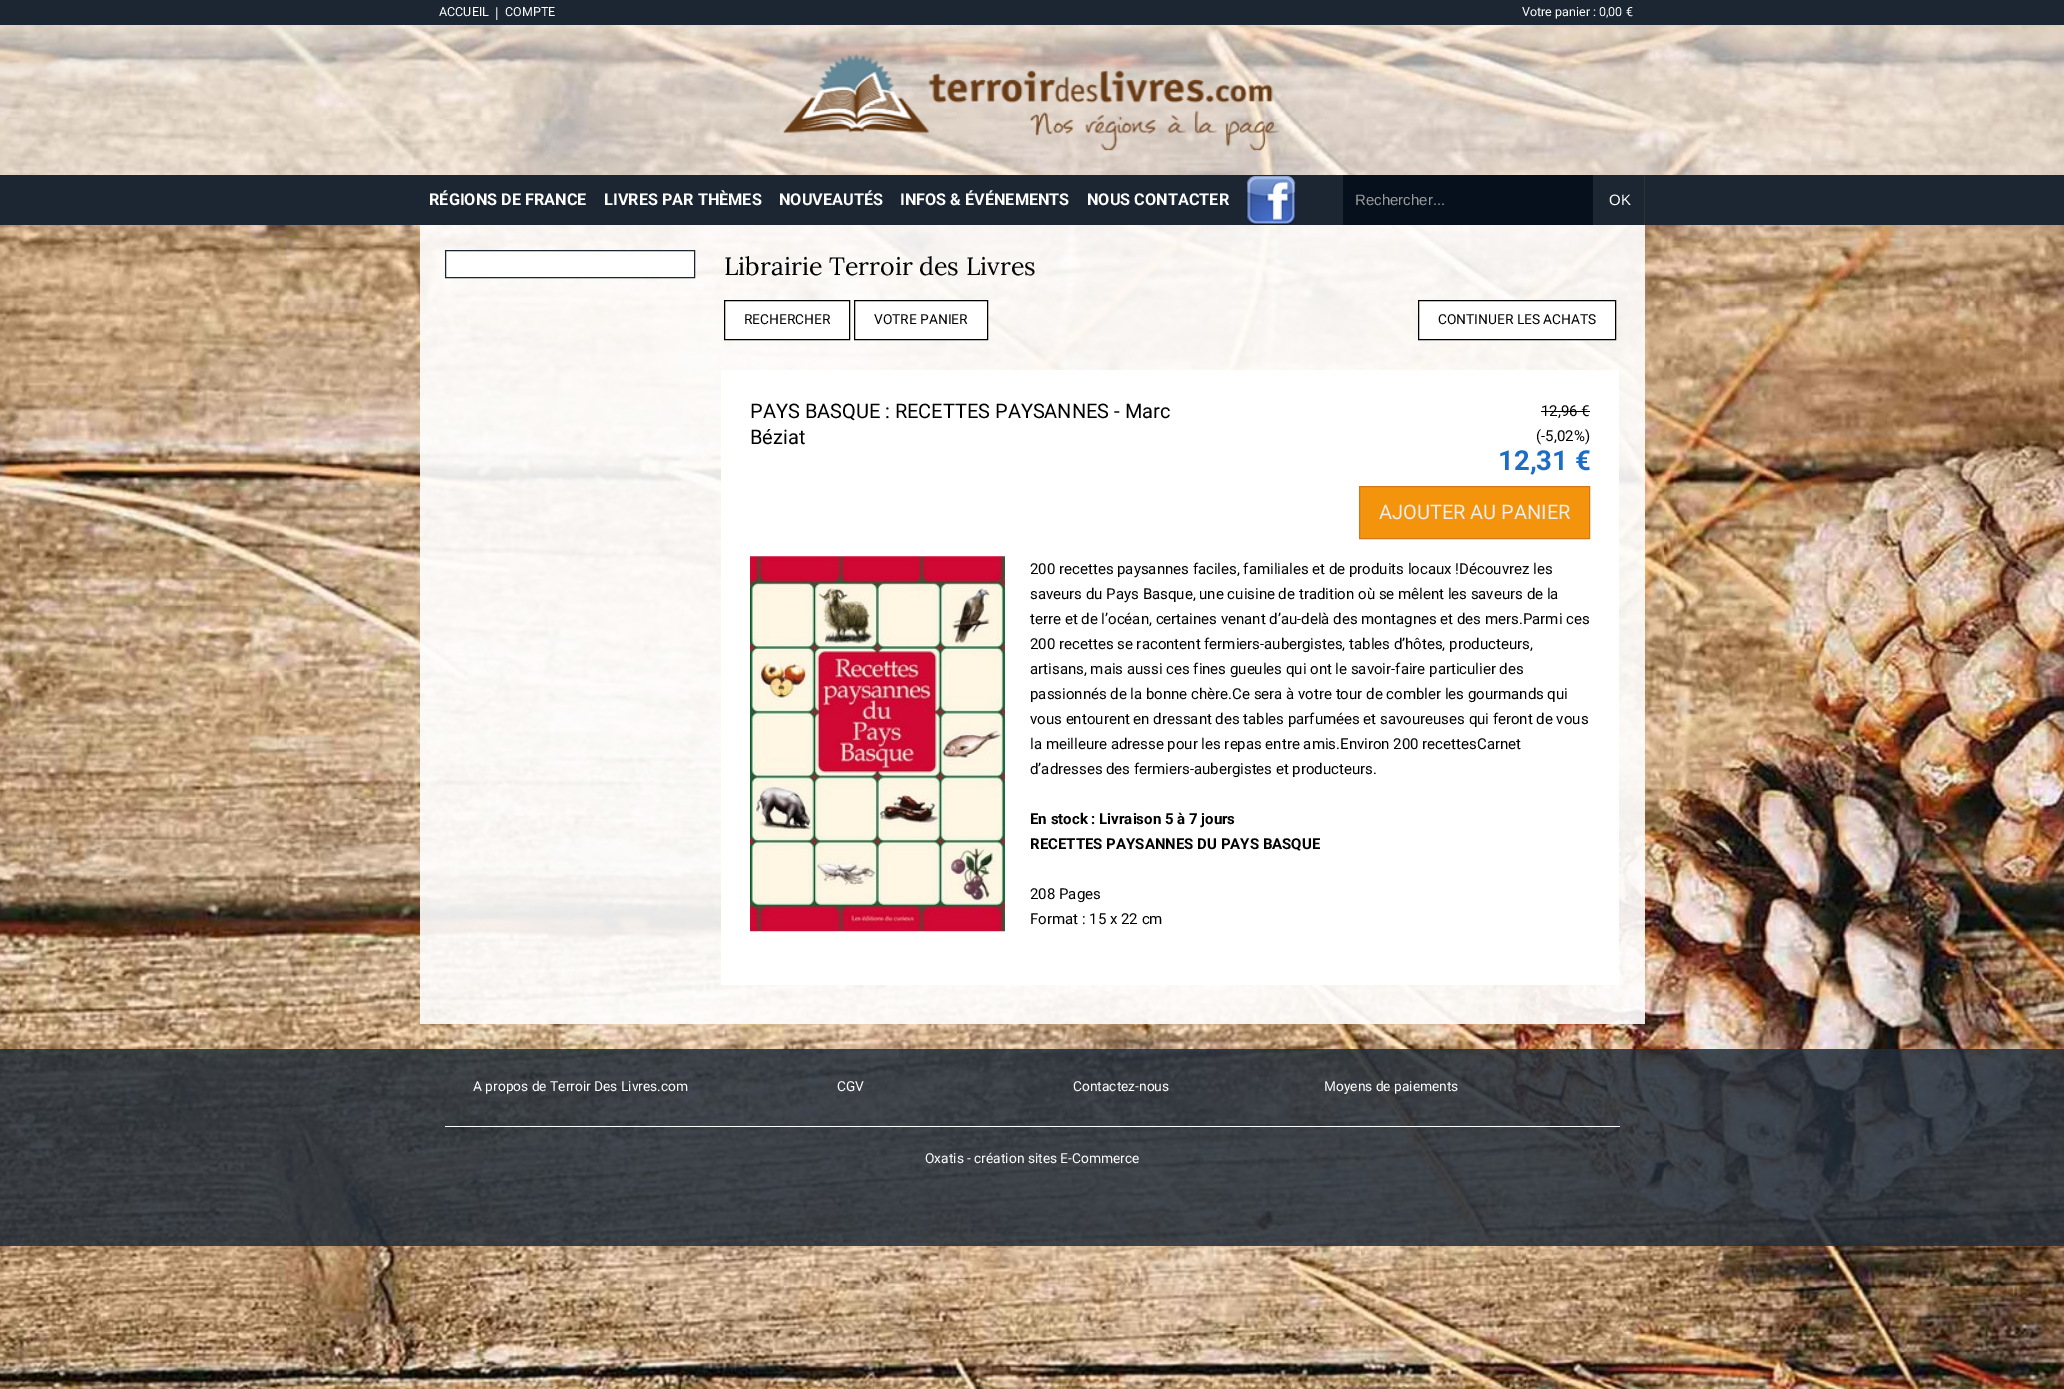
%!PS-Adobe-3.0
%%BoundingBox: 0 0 2064 1389
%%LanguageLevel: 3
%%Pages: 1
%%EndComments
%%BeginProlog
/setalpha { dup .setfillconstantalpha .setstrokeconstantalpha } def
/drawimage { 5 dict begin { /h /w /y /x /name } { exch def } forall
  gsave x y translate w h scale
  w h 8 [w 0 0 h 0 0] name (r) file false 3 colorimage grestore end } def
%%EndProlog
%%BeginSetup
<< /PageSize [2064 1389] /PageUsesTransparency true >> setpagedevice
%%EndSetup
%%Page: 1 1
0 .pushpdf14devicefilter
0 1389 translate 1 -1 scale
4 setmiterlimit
1 setgray
0 0 2064 1389 rectfill
(images/1.raw) 0 25 2064 1364 drawimage
0.6 setalpha
0 25 2064 150 rectfill
1 setalpha
0.106 0.149 0.196 setrgbcolor
0 175 2064 50 rectfill
0 0 2064 25 rectfill
(images/2.raw) 783 53 497 98 drawimage
(images/3.raw) 1246 175 50 50 drawimage
0.02 0.063 0.11 setrgbcolor
1343 175 250 50 rectfill
0.2 setgray
1644 175 1 50 rectfill
0.9 setalpha
1 setgray
420 225 1225 799 rectfill
1 setalpha
newpath 445.5 250.5 moveto 694.5 250.5 lineto 694.5 277.5 lineto 445.5 277.5 lineto closepath gsave fill grestore
0.106 0.149 0.196 setrgbcolor
stroke
1 setgray
newpath 724.5 300.5 moveto 849.5 300.5 lineto 849.5 339.5 lineto 724.5 339.5 lineto closepath gsave fill grestore
0 setgray
stroke
1 setgray
newpath 854.5 300.5 moveto 987.5 300.5 lineto 987.5 339.5 lineto 854.5 339.5 lineto closepath gsave fill grestore
0 setgray
stroke
1 setgray
newpath 1418.5 300.5 moveto 1615.5 300.5 lineto 1615.5 339.5 lineto 1418.5 339.5 lineto closepath gsave fill grestore
0 setgray
stroke
1 setgray
721 370 898 615 rectfill
0 setgray
1541 411 49 1 rectfill
0.953 0.58 0.047 setrgbcolor
newpath 1359.5 486.5 moveto 1589.5 486.5 lineto 1589.5 538.5 lineto 1359.5 538.5 lineto closepath gsave fill grestore
0.824 0.471 0.106 setrgbcolor
stroke
(images/4.raw) 750 556 255 376 drawimage
0.85 setalpha
0.129 0.173 0.22 setrgbcolor
0 1049 2064 197 rectfill
1 setalpha
1 setgray
445 1126 1175 1 rectfill
/Roboto-Regular [12.5 0 0 -12.5 0 0] selectfont
439 16 moveto (ACCUEIL) show
/Roboto-Regular [15 0 0 -15 0 0] selectfont
495 18 moveto (|) show
/Roboto-Regular [12.5 0 0 -12.5 0 0] selectfont
505 16 moveto (COMPTE) show
1522 16 moveto (Votre panier : 0,00 €) show
/Roboto-Bold [16.25 0 0 -16.25 0 0] selectfont
429 205 moveto (RÉGIONS DE FRANCE) show
604 205 moveto (LIVRES PAR THÈMES) show
779 205 moveto (NOUVEAUTÉS) show
900 205 moveto (INFOS & ÉVÉNEMENTS) show
1087 205 moveto (NOUS CONTACTER) show
/LiberationSans-Regular [15 0 0 -15 0 0] selectfont
0.6 setgray
1355 205 moveto (Rechercher...) show
1 setgray
1609 205 moveto (OK) show
/Lora-Regular [25 0 0 -25 0 0] selectfont
0 setgray
724 275 moveto (Librairie Terroir des Livres) show
/Roboto-Regular [13.75 0 0 -13.75 0 0] selectfont
744 324 moveto (RECHERCHER) show
874 324 moveto (VOTRE PANIER) show
1438 324 moveto (CONTINUER LES ACHATS) show
/Roboto-Regular [20 0 0 -20 0 0] selectfont
750 418 moveto (PAYS BASQUE : RECETTES PAYSANNES - Marc) show
750 444 moveto (Béziat) show
/Roboto-Regular [15 0 0 -15 0 0] selectfont
1541 416 moveto (12,96 €) show
1536 441 moveto (\(-5,02%\)) show
/Roboto-Bold [27.5 0 0 -27.5 0 0] selectfont
0.106 0.427 0.776 setrgbcolor
1498 470 moveto (12,31 €) show
/Roboto-Regular [20 0 0 -20 0 0] selectfont
0.933 setgray
1379 519 moveto (AJOUTER AU PANIER) show
/Roboto-Regular [15 0 0 -15 0 0] selectfont
0 setgray
1030 574 moveto (200 recettes paysannes faciles, familiales et de produits locaux !Découvrez les) show
1030 599 moveto (saveurs du Pays Basque, une cuisine de tradition où se mêlent les saveurs de la) show
1030 624 moveto (terre et de l’océan, certaines venant d’au-delà des montagnes et des mers.Parmi ces) show
1030 649 moveto (200 recettes se racontent fermiers-aubergistes, tables d’hôtes, producteurs,) show
1030 674 moveto (artisans, mais aussi ces fines gueules qui ont le savoir-faire particulier des) show
1030 699 moveto (passionnés de la bonne chère.Ce sera à votre tour de combler les gourmands qui) show
1030 724 moveto (vous entourent en dressant des tables parfumées et savoureuses qui feront de vous) show
1030 749 moveto (la meilleure adresse pour les repas entre amis.Environ 200 recettesCarnet) show
1030 774 moveto (d’adresses des fermiers-aubergistes et producteurs.) show
/Roboto-Bold [15 0 0 -15 0 0] selectfont
1030 824 moveto (En stock : Livraison 5 à 7 jours) show
1030 849 moveto (RECETTES PAYSANNES DU PAYS BASQUE) show
/Roboto-Regular [15 0 0 -15 0 0] selectfont
1030 899 moveto (208 Pages) show
1030 924 moveto (Format : 15 x 22 cm) show
/Roboto-Regular [13.75 0 0 -13.75 0 0] selectfont
1 setgray
473 1091 moveto (A propos de Terroir Des Livres.com) show
837 1091 moveto (CGV) show
1073 1091 moveto (Contactez-nous) show
1324 1091 moveto (Moyens de paiements) show
925 1163 moveto (Oxatis - création sites E-Commerce) show
.poppdf14devicefilter showpage
%%EOF
